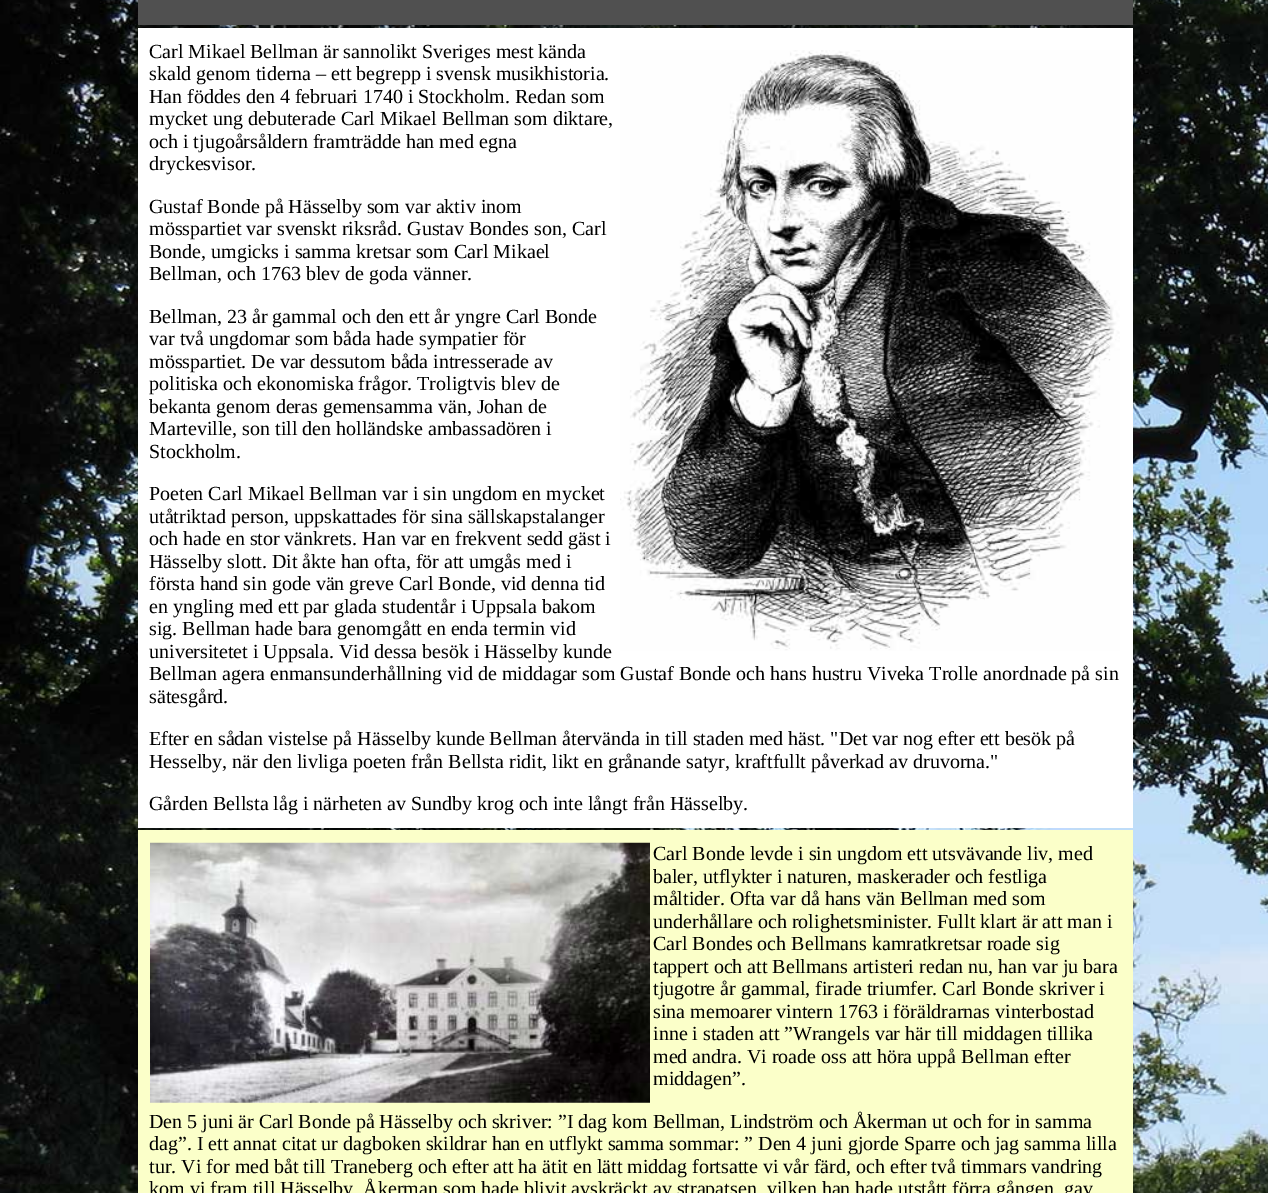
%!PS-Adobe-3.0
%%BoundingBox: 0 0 1268 1193
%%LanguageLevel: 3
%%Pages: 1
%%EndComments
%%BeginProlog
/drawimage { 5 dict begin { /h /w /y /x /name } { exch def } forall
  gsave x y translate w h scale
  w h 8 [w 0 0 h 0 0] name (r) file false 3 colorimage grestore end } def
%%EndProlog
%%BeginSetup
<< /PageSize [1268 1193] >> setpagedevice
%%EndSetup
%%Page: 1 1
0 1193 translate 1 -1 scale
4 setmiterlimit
1 setgray
0 0 1268 1193 rectfill
(images/1.raw) 0 0 1268 1193 drawimage
0.314 setgray
138 0 995 25 rectfill
1 setgray
138 28 995 800 rectfill
(images/2.raw) 620 50 500 601 drawimage
0.984 1 0.788 setrgbcolor
138 830 995 363 rectfill
(images/3.raw) 150 842 500 261 drawimage
/LiberationSerif-Regular [20 0 0 -20 0 0] selectfont
0 setgray
149 58 moveto (Carl Mikael Bellman är sannolikt Sveriges mest kända) show
149 80 moveto (skald genom tiderna – ett begrepp i svensk musikhistoria.) show
149 103 moveto (Han föddes den 4 februari 1740 i Stockholm. Redan som) show
149 125 moveto (mycket ung debuterade Carl Mikael Bellman som diktare,) show
149 148 moveto (och i tjugoårsåldern framträdde han med egna) show
149 170 moveto (dryckesvisor.) show
149 213 moveto (Gustaf Bonde på Hässelby som var aktiv inom) show
149 235 moveto (mösspartiet var svenskt riksråd. Gustav Bondes son, Carl) show
149 258 moveto (Bonde, umgicks i samma kretsar som Carl Mikael) show
149 280 moveto (Bellman, och 1763 blev de goda vänner.) show
149 323 moveto (Bellman, 23 år gammal och den ett år yngre Carl Bonde) show
149 345 moveto (var två ungdomar som båda hade sympatier för) show
149 368 moveto (mösspartiet. De var dessutom båda intresserade av) show
149 390 moveto (politiska och ekonomiska frågor. Troligtvis blev de) show
149 413 moveto (bekanta genom deras gemensamma vän, Johan de) show
149 435 moveto (Marteville, son till den holländske ambassadören i) show
149 458 moveto (Stockholm.) show
149 500 moveto (Poeten Carl Mikael Bellman var i sin ungdom en mycket) show
149 523 moveto (utåtriktad person, uppskattades för sina sällskapstalanger) show
149 545 moveto (och hade en stor vänkrets. Han var en frekvent sedd gäst i) show
149 568 moveto (Hässelby slott. Dit åkte han ofta, för att umgås med i) show
149 590 moveto (första hand sin gode vän greve Carl Bonde, vid denna tid) show
149 613 moveto (en yngling med ett par glada studentår i Uppsala bakom) show
149 635 moveto (sig. Bellman hade bara genomgått en enda termin vid) show
149 658 moveto (universitetet i Uppsala. Vid dessa besök i Hässelby kunde) show
149 680 moveto (Bellman agera enmansunderhållning vid de middagar som Gustaf Bonde och hans hustru Viveka Trolle anordnade på sin) show
149 703 moveto (sätesgård.) show
149 745 moveto (Efter en sådan vistelse på Hässelby kunde Bellman återvända in till staden med häst. "Det var nog efter ett besök på) show
149 768 moveto (Hesselby, när den livliga poeten från Bellsta ridit, likt en grånande satyr, kraftfullt påverkad av druvorna.") show
149 810 moveto (Gården Bellsta låg i närheten av Sundby krog och inte långt från Hässelby.) show
653 860 moveto (Carl Bonde levde i sin ungdom ett utsvävande liv, med) show
653 883 moveto (baler, utflykter i naturen, maskerader och festliga) show
653 905 moveto (måltider. Ofta var då hans vän Bellman med som) show
653 928 moveto (underhållare och rolighetsminister. Fullt klart är att man i) show
653 950 moveto (Carl Bondes och Bellmans kamratkretsar roade sig) show
653 973 moveto (tappert och att Bellmans artisteri redan nu, han var ju bara) show
653 995 moveto (tjugotre år gammal, firade triumfer. Carl Bonde skriver i) show
653 1018 moveto (sina memoarer vintern 1763 i föräldrarnas vinterbostad) show
653 1040 moveto (inne i staden att ”Wrangels var här till middagen tillika) show
653 1063 moveto (med andra. Vi roade oss att höra uppå Bellman efter) show
653 1085 moveto (middagen”.) show
149 1128 moveto (Den 5 juni är Carl Bonde på Hässelby och skriver: ”I dag kom Bellman, Lindström och Åkerman ut och for in samma) show
149 1150 moveto (dag”. I ett annat citat ur dagboken skildrar han en utflykt samma sommar: ” Den 4 juni gjorde Sparre och jag samma lilla) show
149 1173 moveto (tur. Vi for med båt till Traneberg och efter att ha ätit en lätt middag fortsatte vi vår färd, och efter två timmars vandring) show
149 1195 moveto (kom vi fram till Hässelby. Åkerman som hade blivit avskräckt av strapatsen, vilken han hade utstått förra gången, gav) show
showpage
%%EOF
